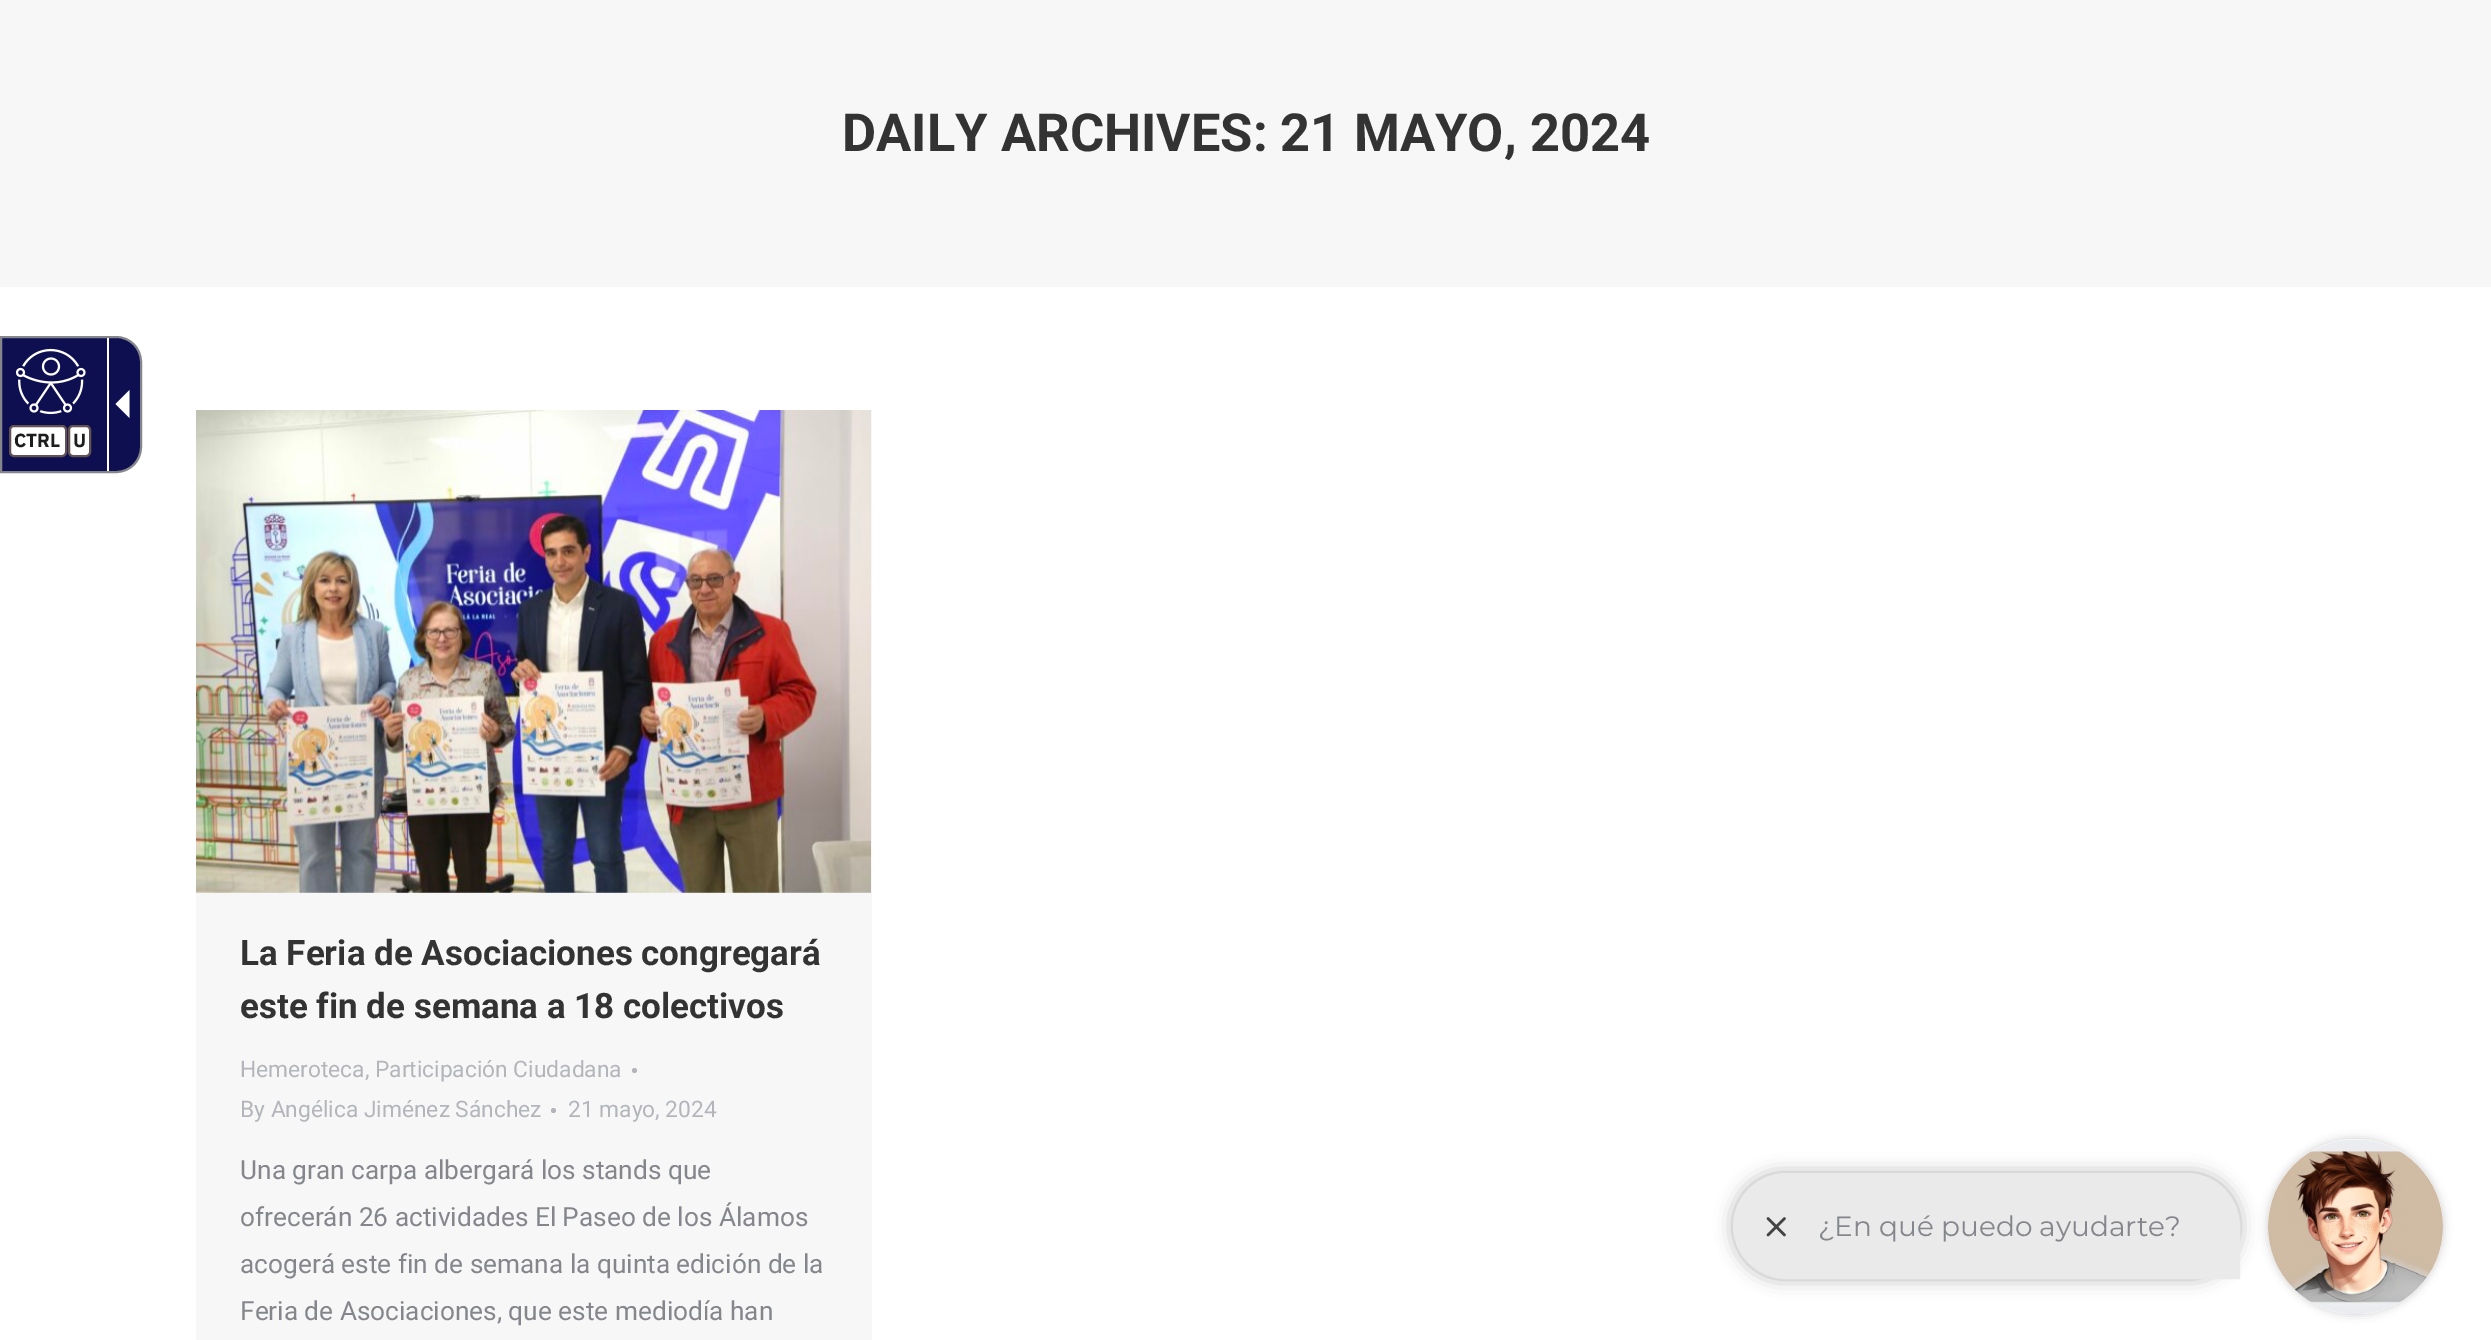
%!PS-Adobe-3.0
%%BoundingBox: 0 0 2491 1340
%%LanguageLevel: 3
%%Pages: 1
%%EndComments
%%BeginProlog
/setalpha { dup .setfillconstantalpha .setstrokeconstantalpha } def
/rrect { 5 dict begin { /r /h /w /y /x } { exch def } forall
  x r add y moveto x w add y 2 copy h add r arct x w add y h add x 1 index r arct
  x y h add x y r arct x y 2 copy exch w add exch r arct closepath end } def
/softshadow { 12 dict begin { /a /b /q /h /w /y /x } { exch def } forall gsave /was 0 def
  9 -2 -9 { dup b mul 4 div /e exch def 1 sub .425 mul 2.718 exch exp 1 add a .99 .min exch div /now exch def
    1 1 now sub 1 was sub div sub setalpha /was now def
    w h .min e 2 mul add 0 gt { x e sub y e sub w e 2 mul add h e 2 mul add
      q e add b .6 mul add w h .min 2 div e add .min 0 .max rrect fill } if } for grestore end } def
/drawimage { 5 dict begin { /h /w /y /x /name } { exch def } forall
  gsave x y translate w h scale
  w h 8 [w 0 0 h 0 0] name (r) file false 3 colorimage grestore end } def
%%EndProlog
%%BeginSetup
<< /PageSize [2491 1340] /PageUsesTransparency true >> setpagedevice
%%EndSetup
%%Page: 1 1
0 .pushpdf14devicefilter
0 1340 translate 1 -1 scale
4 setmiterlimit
1 setgray
0 0 2491 1340 rectfill
0.055 0.059 0.318 setrgbcolor
newpath 1 337 moveto 116 337 lineto 130 337 141 348 141 362 curveto 141 447 lineto 141 461 130 472 116 472 curveto 1 472 lineto closepath gsave fill grestore
0.522 0.525 0.549 setrgbcolor
2 setlinewidth
stroke
1 setgray
newpath 129.5 390 moveto 129.5 418 lineto 115.5 404 lineto closepath fill
107 338 2 133 rectfill
(images/1.raw) 16 348 70 67 drawimage
10 426 56 30 4 rrect gsave fill grestore
0.388 0.322 0.322 setrgbcolor
stroke
1 setgray
69 426 21 30 4 rrect gsave fill grestore
0.388 0.322 0.322 setrgbcolor
stroke
0.969 setgray
0 0 2491 287 rectfill
196 410 676 930 rectfill
(images/2.raw) 196 410 675 483 drawimage
0.706 0.71 0.733 setrgbcolor
newpath 634.5 1070.5 2.5 0 360 arc closepath fill
newpath 553.5 1110.5 2.5 0 360 arc closepath fill
0 setgray
1733 1173 507 106 53 9 0.3 softshadow
0.918 setgray
newpath 1786 1174 moveto 2187 1174 lineto 2215.5 1174 2239 1197.5 2239 1226 curveto 2239 1278 lineto 1786 1278 lineto 1757.5 1278 1734 1254.5 1734 1226 curveto 1734 1197.5 1757.5 1174 1786 1174 curveto closepath gsave fill grestore
stroke
(images/3.raw) 1766 1217 20 20 drawimage
0 setgray
2268 1139 175 175 87.5 4.5 0.2 softshadow
1 setgray
newpath 2355.5 1226.5 87.5 0 360 arc closepath fill
(images/4.raw) 2268 1139 175 175 drawimage
/IBMPlexSans-Bold [19 0 0 -19 0 0] selectfont
0.114 setgray
14 447 moveto (CTRL) show
73 447 moveto (U) show
/Roboto-Bold [52.5 0 0 -52.5 0 0] selectfont
0.2 setgray
842 151 moveto (DAILY ARCHIVES: 21 MAYO, 2024) show
/Roboto-Bold [35 0 0 -35 0 0] selectfont
240 965 moveto (La Feria de Asociaciones congregará) show
240 1018 moveto (este fin de semana a 18 colectivos) show
/Roboto-Regular [22.75 0 0 -22.75 0 0] selectfont
0.706 0.71 0.733 setrgbcolor
240 1077 moveto (Hemeroteca, Participación Ciudadana) show
240 1117 moveto (By Angélica Jiménez Sánchez) show
568 1117 moveto (21 mayo, 2024) show
/Roboto-Regular [26.25 0 0 -26.25 0 0] selectfont
0.522 0.525 0.549 setrgbcolor
240 1179 moveto (Una gran carpa albergará los stands que) show
240 1226 moveto (ofrecerán 26 actividades El Paseo de los Álamos) show
240 1273 moveto (acogerá este fin de semana la quinta edición de la) show
240 1320 moveto (Feria de Asociaciones, que este mediodía han) show
/Montserrat-Regular [28 0 0 -28 0 0] selectfont
1818 1236 moveto (¿En qué puedo ayudarte?) show
.poppdf14devicefilter showpage
%%EOF
